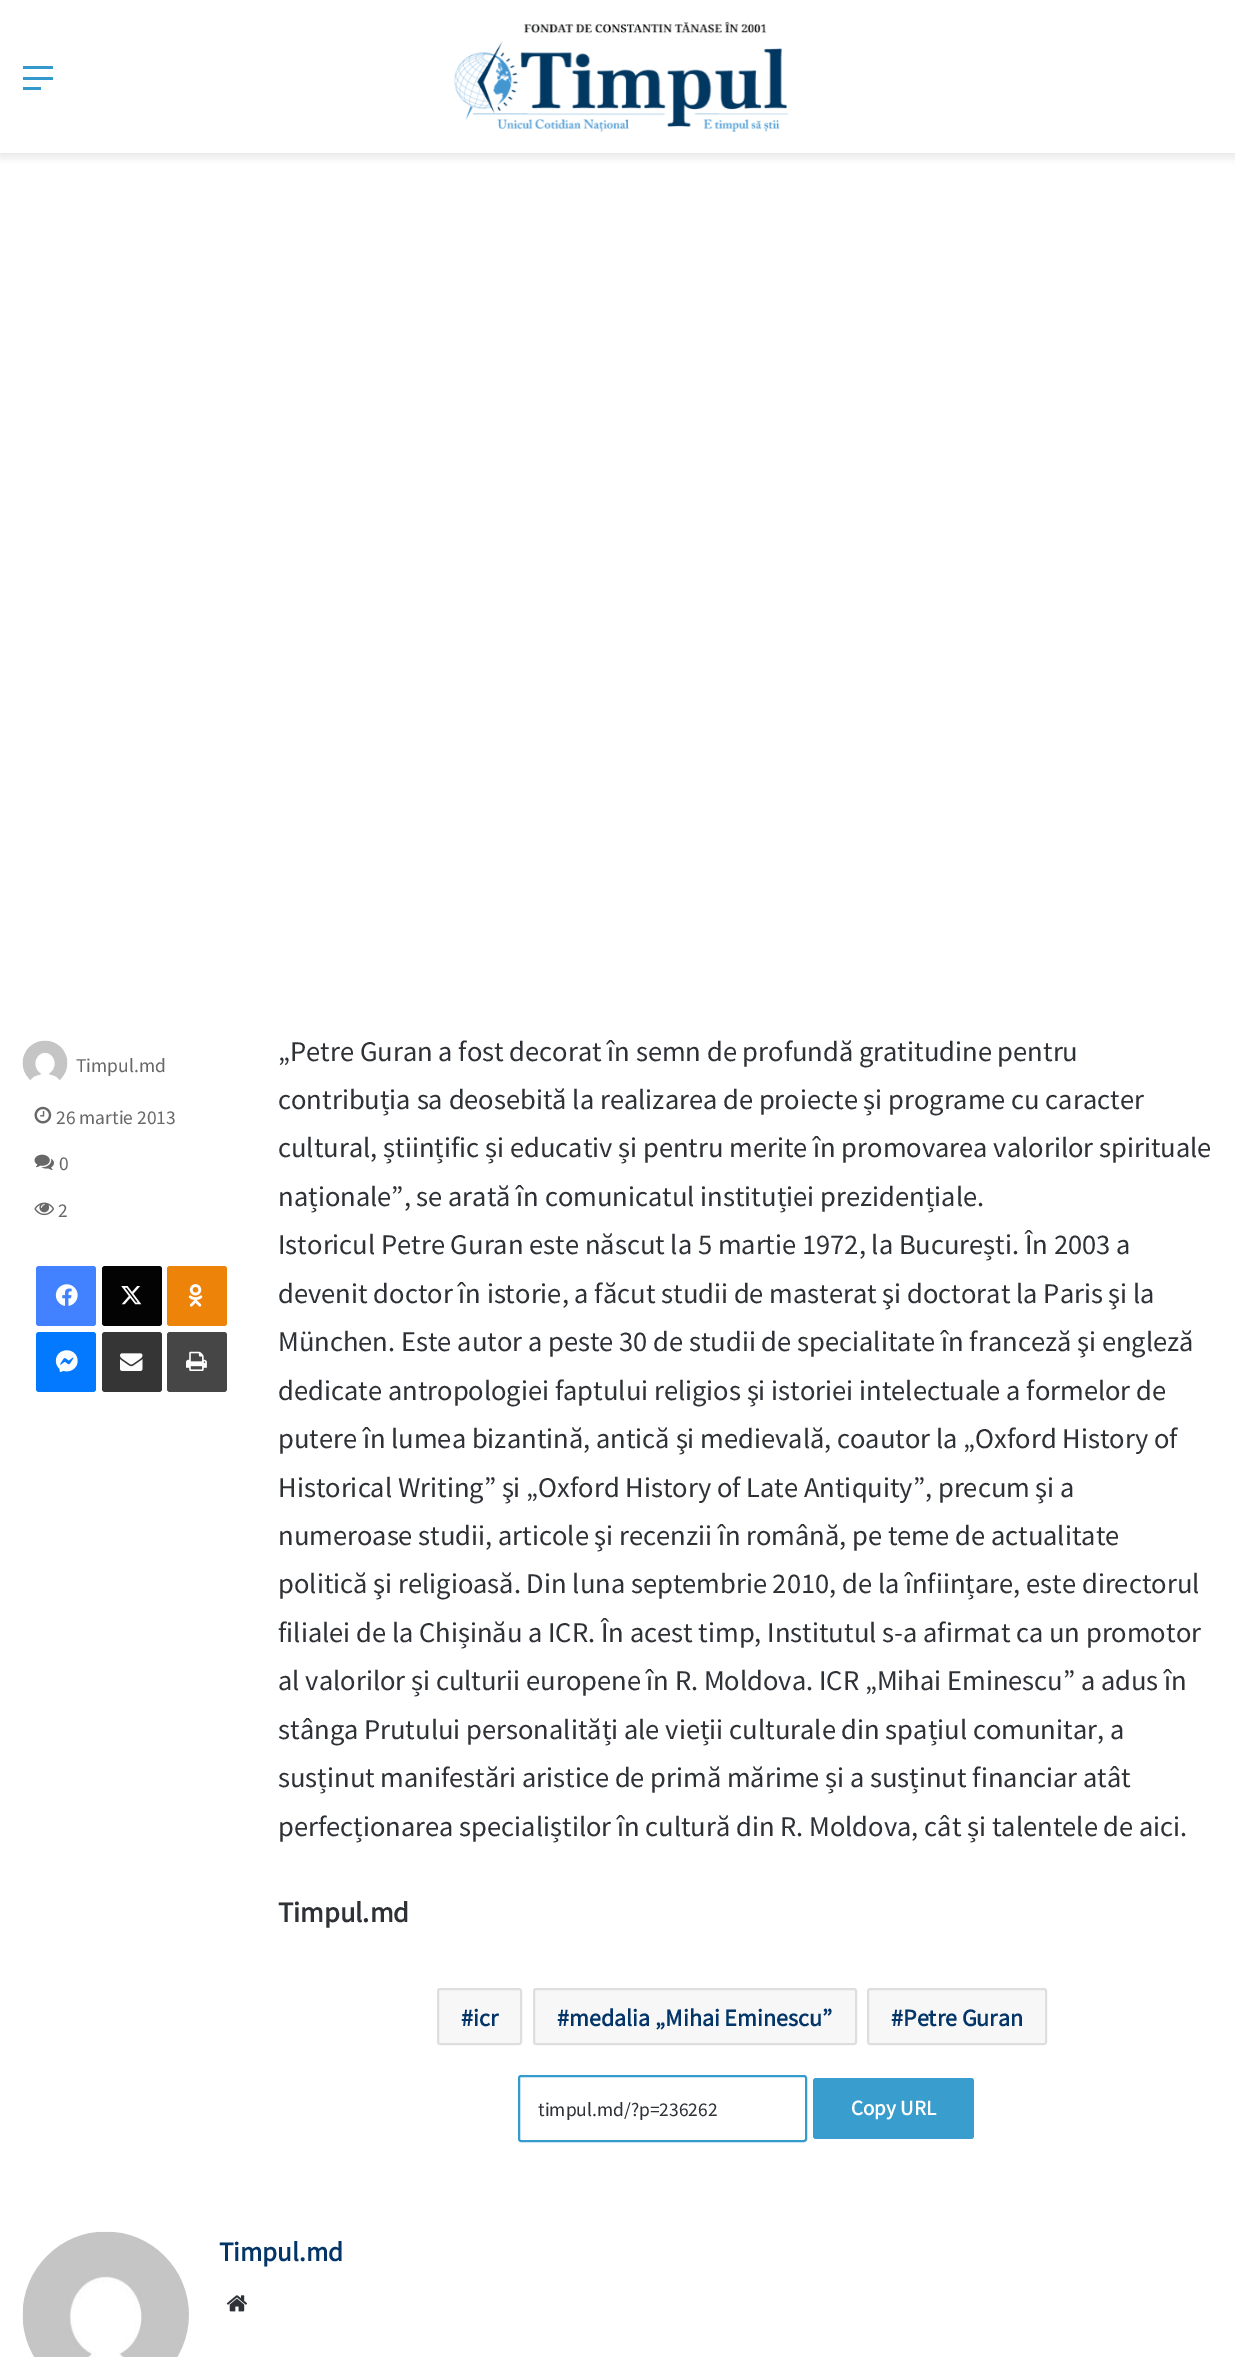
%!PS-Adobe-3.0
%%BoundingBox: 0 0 1235 2357
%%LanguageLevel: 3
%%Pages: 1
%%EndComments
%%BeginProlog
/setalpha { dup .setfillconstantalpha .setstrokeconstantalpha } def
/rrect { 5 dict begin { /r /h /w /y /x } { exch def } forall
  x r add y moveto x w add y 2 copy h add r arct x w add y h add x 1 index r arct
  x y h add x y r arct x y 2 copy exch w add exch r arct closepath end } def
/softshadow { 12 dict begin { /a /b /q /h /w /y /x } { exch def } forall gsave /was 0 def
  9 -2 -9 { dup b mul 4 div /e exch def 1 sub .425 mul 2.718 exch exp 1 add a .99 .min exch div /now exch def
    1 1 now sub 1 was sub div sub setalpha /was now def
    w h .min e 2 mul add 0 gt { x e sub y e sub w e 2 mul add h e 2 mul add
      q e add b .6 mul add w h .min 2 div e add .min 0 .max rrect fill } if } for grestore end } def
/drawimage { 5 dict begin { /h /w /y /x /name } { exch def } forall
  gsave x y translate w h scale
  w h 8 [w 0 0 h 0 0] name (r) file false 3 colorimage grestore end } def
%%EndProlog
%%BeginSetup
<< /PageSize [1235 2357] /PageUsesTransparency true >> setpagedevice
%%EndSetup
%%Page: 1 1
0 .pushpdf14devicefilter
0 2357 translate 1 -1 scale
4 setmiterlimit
1 setgray
0 0 1235 2357 rectfill
gsave
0 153 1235 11 rectclip
0.388 setgray
0 3 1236 153 0 6 0.2 softshadow
grestore
0.2 0.6 0.8 setrgbcolor
23 77 30 3 rectfill
23 66 30 3 rectfill
23 87 18 3 rectfill
(images/1.raw) 454 21 334 111 drawimage
(images/2.raw) 22 1040 46 40 drawimage
(images/3.raw) 34 1106 18 18 drawimage
(images/4.raw) 34 1154 20 16 drawimage
(images/5.raw) 34 1202 20 14 drawimage
0.259 0.506 1 setrgbcolor
36 1266 60 60 3 rrect fill
(images/6.raw) 55 1284 23 22 drawimage
0.012 setgray
102 1266 60 60 3 rrect fill
(images/7.raw) 121 1286 21 19 drawimage
0.933 0.514 0.039 setrgbcolor
167 1266 60 60 3 rrect fill
(images/8.raw) 188 1284 15 23 drawimage
0.012 0.475 1 setrgbcolor
36 1332 60 60 3 rrect fill
(images/9.raw) 55 1350 23 22 drawimage
0.208 setgray
102 1332 60 60 3 rrect fill
(images/10.raw) 120 1353 23 18 drawimage
0.275 setgray
167 1332 60 60 3 rrect fill
(images/11.raw) 186 1351 21 20 drawimage
0.969 setgray
437 1988 85 57 3 rrect fill
0.1 setalpha
0.012 setgray
2 setlinewidth
438 1989 83 55 2 rrect stroke
1 setalpha
0.969 setgray
533 1988 324 57 3 rrect fill
0.1 setalpha
0.012 setgray
534 1989 322 55 2 rrect stroke
1 setalpha
0.969 setgray
867 1988 180 57 3 rrect fill
0.1 setalpha
0.012 setgray
868 1989 178 55 2 rrect stroke
1 setalpha
0.208 0.604 0.804 setrgbcolor
519 2076 287 65 2 rrect stroke
0.224 0.616 0.808 setrgbcolor
813 2078 161 61 3 rrect fill
(images/12.raw) 22 2231 167 126 drawimage
(images/13.raw) 226 2295 21 17 drawimage
/SourceSansPro-Regular [19.5 0 0 -19.5 0 0] selectfont
0.408 setgray
76 1072 moveto (Timpul.md) show
56 1124 moveto (26 martie 2013) show
59 1170 moveto (0) show
58 1217 moveto (2) show
/SourceSansPro-Regular [28.5 0 0 -28.5 0 0] selectfont
0.18 0.192 0.212 setrgbcolor
278 1061 moveto („Petre Guran a fost decorat în semn de profundă gratitudine pentru) show
278 1109 moveto (contribuția sa deosebită la realizarea de proiecte și programe cu caracter) show
278 1157 moveto (cultural, științific și educativ și pentru merite în promovarea valorilor spirituale) show
278 1206 moveto (naționale”, se arată în comunicatul instituției prezidențiale.) show
278 1254 moveto (Istoricul Petre Guran este născut la 5 martie 1972, la București. În 2003 a) show
278 1303 moveto (devenit doctor în istorie, a făcut studii de masterat şi doctorat la Paris şi la) show
278 1351 moveto (München. Este autor a peste 30 de studii de specialitate în franceză şi engleză) show
278 1400 moveto (dedicate antropologiei faptului religios şi istoriei intelectuale a formelor de) show
278 1448 moveto (putere în lumea bizantină, antică şi medievală, coautor la „Oxford History of) show
278 1497 moveto (Historical Writing” şi „Oxford History of Late Antiquity”, precum şi a) show
278 1545 moveto (numeroase studii, articole şi recenzii în română, pe teme de actualitate) show
278 1593 moveto (politică şi religioasă. Din luna septembrie 2010, de la înființare, este directorul) show
278 1642 moveto (filialei de la Chișinău a ICR. În acest timp, Institutul s-a afirmat ca un promotor) show
278 1690 moveto (al valorilor și culturii europene în R. Moldova. ICR „Mihai Eminescu” a adus în) show
278 1739 moveto (stânga Prutului personalități ale vieții culturale din spațiul comunitar, a) show
278 1787 moveto (susținut manifestări aristice de primă mărime și a susținut financiar atât) show
278 1836 moveto (perfecționarea specialiștilor în cultură din R. Moldova, cât și talentele de aici.) show
/SourceSansPro-Bold [28.5 0 0 -28.5 0 0] selectfont
278 1922 moveto (Timpul.md) show
/SourceSansPro-Bold [24 0 0 -24 0 0] selectfont
0.012 0.208 0.408 setrgbcolor
461 2026 moveto (#icr) show
557 2026 moveto (#medalia „Mihai Eminescu”) show
891 2026 moveto (#Petre Guran) show
/SourceSansPro-Regular [19.5 0 0 -19.5 0 0] selectfont
0.18 0.192 0.212 setrgbcolor
538 2116 moveto (timpul.md/?p=236262) show
/SourceSansPro-Bold [21 0 0 -21 0 0] selectfont
1 setgray
851 2115 moveto (Copy URL) show
/SourceSansPro-Bold [27 0 0 -27 0 0] selectfont
0.012 0.208 0.408 setrgbcolor
219 2261 moveto (Timpul.md) show
.poppdf14devicefilter showpage
%%EOF
